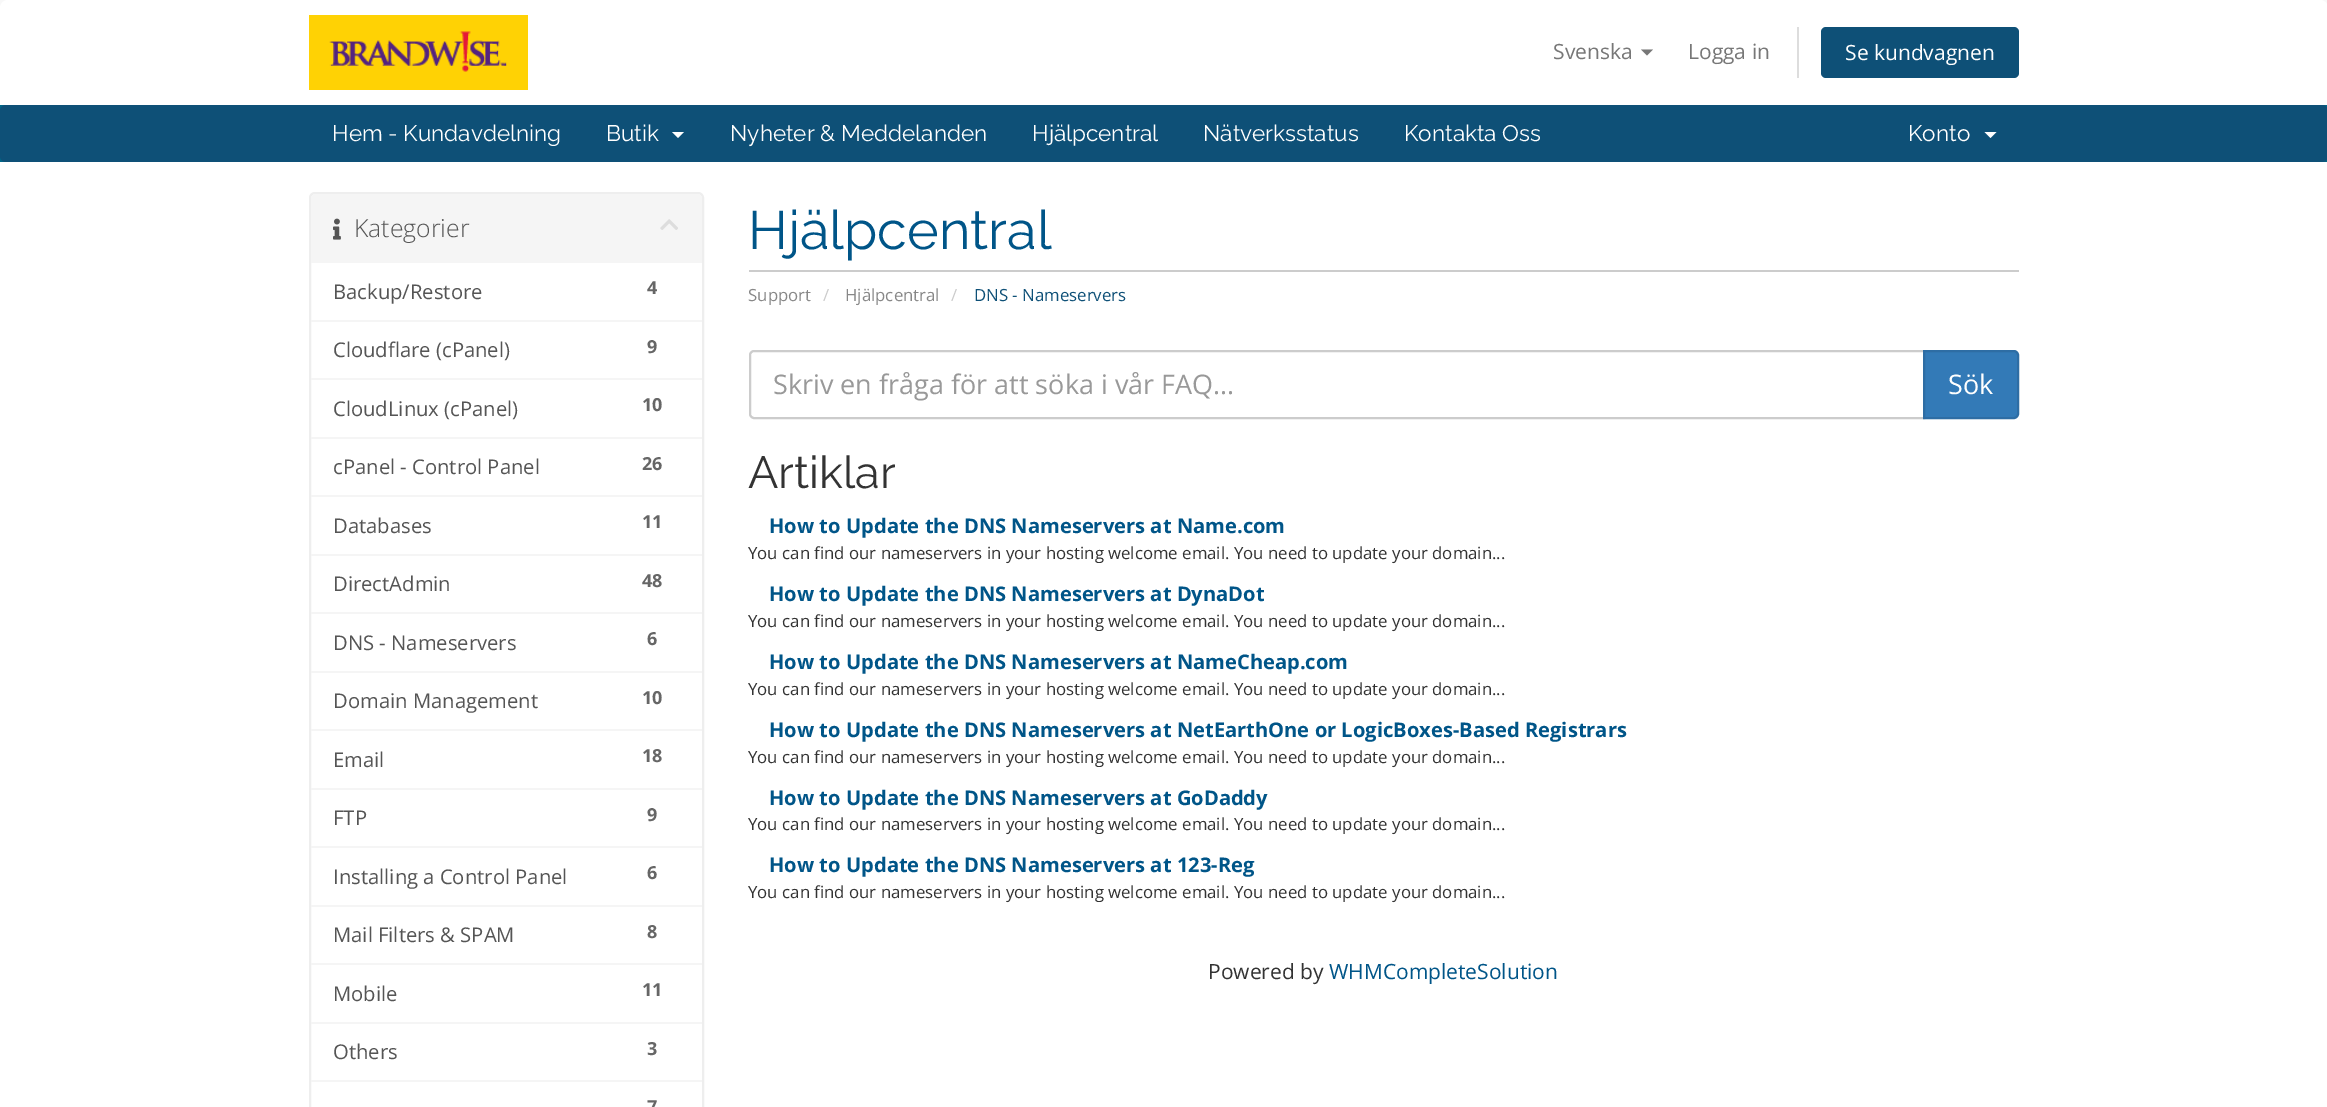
%!PS-Adobe-3.0
%%BoundingBox: 0 0 2327 1107
%%LanguageLevel: 3
%%Pages: 1
%%EndComments
%%BeginProlog
/rrect { 5 dict begin { /r /h /w /y /x } { exch def } forall
  x r add y moveto x w add y 2 copy h add r arct x w add y h add x 1 index r arct
  x y h add x y r arct x y 2 copy exch w add exch r arct closepath end } def
/drawimage { 5 dict begin { /h /w /y /x /name } { exch def } forall
  gsave x y translate w h scale
  w h 8 [w 0 0 h 0 0] name (r) file false 3 colorimage grestore end } def
%%EndProlog
%%BeginSetup
<< /PageSize [2327 1107] >> setpagedevice
%%EndSetup
%%Page: 1 1
0 1107 translate 1 -1 scale
4 setmiterlimit
0.973 setgray
0 0 2327 1107 rectfill
1 setgray
newpath 8 0 moveto 2320 0 lineto 2324.5 0 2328 3.5 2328 8 curveto 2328 105 lineto 0 105 lineto 0 8 lineto 0 3.5 3.5 0 8 0 curveto closepath fill
(images/1.raw) 309 15 219 75 drawimage
0.467 setgray
newpath 1641 49.5 moveto 1653 49.5 lineto 1647 55.5 lineto closepath fill
0.867 setgray
1797 27 2 51 rectfill
0.055 0.314 0.467 setrgbcolor
1821 27 198 51 5 rrect fill
0 0.4 0.529 setrgbcolor
0 105 2327 57 rectfill
0.055 0.314 0.467 setrgbcolor
0 105 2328 57 6 rrect fill
1 setgray
newpath 672 132 moveto 684 132 lineto 678 138 lineto closepath fill
newpath 1984.5 132 moveto 1996.5 132 lineto 1990.5 138 lineto closepath fill
0 162 2327 945 rectfill
0.933 setgray
2 setlinewidth
310 193 393 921 5 rrect stroke
0.961 setgray
newpath 316 194 moveto 697 194 lineto 700 194 702 196 702 199 curveto 702 263 lineto 311 263 lineto 311 199 lineto 311 196 313 194 316 194 curveto closepath fill
(images/2.raw) 333 218 8 22 drawimage
(images/3.raw) 660 219 18 11 drawimage
311 320 391 2 rectfill
311 378 391 2 rectfill
311 437 391 2 rectfill
311 495 391 2 rectfill
311 554 391 2 rectfill
311 612 391 2 rectfill
311 671 391 2 rectfill
311 729 391 2 rectfill
311 788 391 2 rectfill
311 846 391 2 rectfill
311 905 391 2 rectfill
311 963 391 2 rectfill
311 1022 391 2 rectfill
311 1080 391 2 rectfill
0.8 setgray
749 270 1270 2 rectfill
newpath 754 351 moveto 1924 351 lineto 1924 418 lineto 754 418 lineto 752 418 750 416 750 414 curveto 750 355 lineto 750 353 752 351 754 351 curveto closepath stroke
0.2 0.478 0.718 setrgbcolor
newpath 1924 351 moveto 2014 351 lineto 2016 351 2018 353 2018 355 curveto 2018 414 lineto 2018 416 2016 418 2014 418 curveto 1924 418 lineto closepath gsave fill grestore
0.18 0.427 0.643 setrgbcolor
stroke
/OpenSans-Regular [21 0 0 -21 0 0] selectfont
0.467 setgray
1553 59 moveto (Svenska) show
1688 59 moveto (Logga in) show
1 setgray
1845 60 moveto (Se kundvagnen) show
/Raleway-Regular [22.5 0 0 -22.5 0 0] selectfont
332 141 moveto (Hem - Kundavdelning) show
606 141 moveto (Butik) show
730 141 moveto (Nyheter & Meddelanden) show
1032 141 moveto (Hjälpcentral) show
1203 141 moveto (Nätverksstatus) show
1404 141 moveto (Kontakta Oss) show
1908 141 moveto (Konto) show
/OpenSans-Light [24.75 0 0 -24.75 0 0] selectfont
0.333 setgray
354 237 moveto (Kategorier) show
/OpenSans-Regular [20.25 0 0 -20.25 0 0] selectfont
333 299 moveto (Backup/Restore) show
/OpenSans-Bold [18 0 0 -18 0 0] selectfont
0.4 setgray
647 294 moveto (4) show
/OpenSans-Regular [20.25 0 0 -20.25 0 0] selectfont
0.333 setgray
333 357 moveto (Cloudflare \(cPanel\)) show
/OpenSans-Bold [18 0 0 -18 0 0] selectfont
0.4 setgray
647 353 moveto (9) show
/OpenSans-Regular [20.25 0 0 -20.25 0 0] selectfont
0.333 setgray
333 416 moveto (CloudLinux \(cPanel\)) show
/OpenSans-Bold [18 0 0 -18 0 0] selectfont
0.4 setgray
642 411 moveto (10) show
/OpenSans-Regular [20.25 0 0 -20.25 0 0] selectfont
0.333 setgray
333 474 moveto (cPanel - Control Panel) show
/OpenSans-Bold [18 0 0 -18 0 0] selectfont
0.4 setgray
642 470 moveto (26) show
/OpenSans-Regular [20.25 0 0 -20.25 0 0] selectfont
0.333 setgray
333 533 moveto (Databases) show
/OpenSans-Bold [18 0 0 -18 0 0] selectfont
0.4 setgray
642 528 moveto (11) show
/OpenSans-Regular [20.25 0 0 -20.25 0 0] selectfont
0.333 setgray
333 591 moveto (DirectAdmin) show
/OpenSans-Bold [18 0 0 -18 0 0] selectfont
0.4 setgray
642 587 moveto (48) show
/OpenSans-Regular [20.25 0 0 -20.25 0 0] selectfont
0.333 setgray
333 650 moveto (DNS - Nameservers) show
/OpenSans-Bold [18 0 0 -18 0 0] selectfont
0.4 setgray
647 645 moveto (6) show
/OpenSans-Regular [20.25 0 0 -20.25 0 0] selectfont
0.333 setgray
333 708 moveto (Domain Management) show
/OpenSans-Bold [18 0 0 -18 0 0] selectfont
0.4 setgray
642 704 moveto (10) show
/OpenSans-Regular [20.25 0 0 -20.25 0 0] selectfont
0.333 setgray
333 767 moveto (Email) show
/OpenSans-Bold [18 0 0 -18 0 0] selectfont
0.4 setgray
642 762 moveto (18) show
/OpenSans-Regular [20.25 0 0 -20.25 0 0] selectfont
0.333 setgray
333 825 moveto (FTP) show
/OpenSans-Bold [18 0 0 -18 0 0] selectfont
0.4 setgray
647 821 moveto (9) show
/OpenSans-Regular [20.25 0 0 -20.25 0 0] selectfont
0.333 setgray
333 884 moveto (Installing a Control Panel) show
/OpenSans-Bold [18 0 0 -18 0 0] selectfont
0.4 setgray
647 879 moveto (6) show
/OpenSans-Regular [20.25 0 0 -20.25 0 0] selectfont
0.333 setgray
333 942 moveto (Mail Filters & SPAM) show
/OpenSans-Bold [18 0 0 -18 0 0] selectfont
0.4 setgray
647 938 moveto (8) show
/OpenSans-Regular [20.25 0 0 -20.25 0 0] selectfont
0.333 setgray
333 1001 moveto (Mobile) show
/OpenSans-Bold [18 0 0 -18 0 0] selectfont
0.4 setgray
642 996 moveto (11) show
/OpenSans-Regular [20.25 0 0 -20.25 0 0] selectfont
0.333 setgray
333 1059 moveto (Others) show
/OpenSans-Bold [18 0 0 -18 0 0] selectfont
0.4 setgray
647 1055 moveto (3) show
647 1113 moveto (7) show
/Raleway-Regular [54 0 0 -54 0 0] selectfont
0 0.333 0.533 setrgbcolor
748 249 moveto (Hjälpcentral) show
/OpenSans-Regular [16.8 0 0 -16.8 0 0] selectfont
0.533 setgray
748 301 moveto (Support) show
0.8 setgray
823 301 moveto (/) show
0.533 setgray
845 301 moveto (Hjälpcentral) show
0.8 setgray
951 301 moveto (/) show
0.055 0.314 0.467 setrgbcolor
974 301 moveto (DNS - Nameservers) show
/OpenSans-Regular [27 0 0 -27 0 0] selectfont
0.6 setgray
773 394 moveto (Skriv en fråga för att söka i vår FAQ...) show
1 setgray
1948 394 moveto (Sök) show
/Raleway-Regular [45 0 0 -45 0 0] selectfont
0.2 setgray
748 488 moveto (Artiklar) show
/OpenSans-Bold [20.15 0 0 -20.15 0 0] selectfont
0 0.333 0.533 setrgbcolor
769 533 moveto (How to Update the DNS Nameservers at Name.com) show
/OpenSans-Regular [16.8 0 0 -16.8 0 0] selectfont
0.2 setgray
748 559 moveto (You can find our nameservers in your hosting welcome email. You need to update your domain...) show
/OpenSans-Bold [20.15 0 0 -20.15 0 0] selectfont
0 0.333 0.533 setrgbcolor
769 601 moveto (How to Update the DNS Nameservers at DynaDot) show
/OpenSans-Regular [16.8 0 0 -16.8 0 0] selectfont
0.2 setgray
748 627 moveto (You can find our nameservers in your hosting welcome email. You need to update your domain...) show
/OpenSans-Bold [20.15 0 0 -20.15 0 0] selectfont
0 0.333 0.533 setrgbcolor
769 669 moveto (How to Update the DNS Nameservers at NameCheap.com) show
/OpenSans-Regular [16.8 0 0 -16.8 0 0] selectfont
0.2 setgray
748 695 moveto (You can find our nameservers in your hosting welcome email. You need to update your domain...) show
/OpenSans-Bold [20.15 0 0 -20.15 0 0] selectfont
0 0.333 0.533 setrgbcolor
769 737 moveto (How to Update the DNS Nameservers at NetEarthOne or LogicBoxes-Based Registrars) show
/OpenSans-Regular [16.8 0 0 -16.8 0 0] selectfont
0.2 setgray
748 763 moveto (You can find our nameservers in your hosting welcome email. You need to update your domain...) show
/OpenSans-Bold [20.15 0 0 -20.15 0 0] selectfont
0 0.333 0.533 setrgbcolor
769 805 moveto (How to Update the DNS Nameservers at GoDaddy) show
/OpenSans-Regular [16.8 0 0 -16.8 0 0] selectfont
0.2 setgray
748 830 moveto (You can find our nameservers in your hosting welcome email. You need to update your domain...) show
/OpenSans-Bold [20.15 0 0 -20.15 0 0] selectfont
0 0.333 0.533 setrgbcolor
769 872 moveto (How to Update the DNS Nameservers at 123-Reg) show
/OpenSans-Regular [16.8 0 0 -16.8 0 0] selectfont
0.2 setgray
748 898 moveto (You can find our nameservers in your hosting welcome email. You need to update your domain...) show
/OpenSans-Regular [21 0 0 -21 0 0] selectfont
1208 979 moveto (Powered by) show
0 0.333 0.533 setrgbcolor
1329 979 moveto (WHMCompleteSolution) show
showpage
%%EOF
